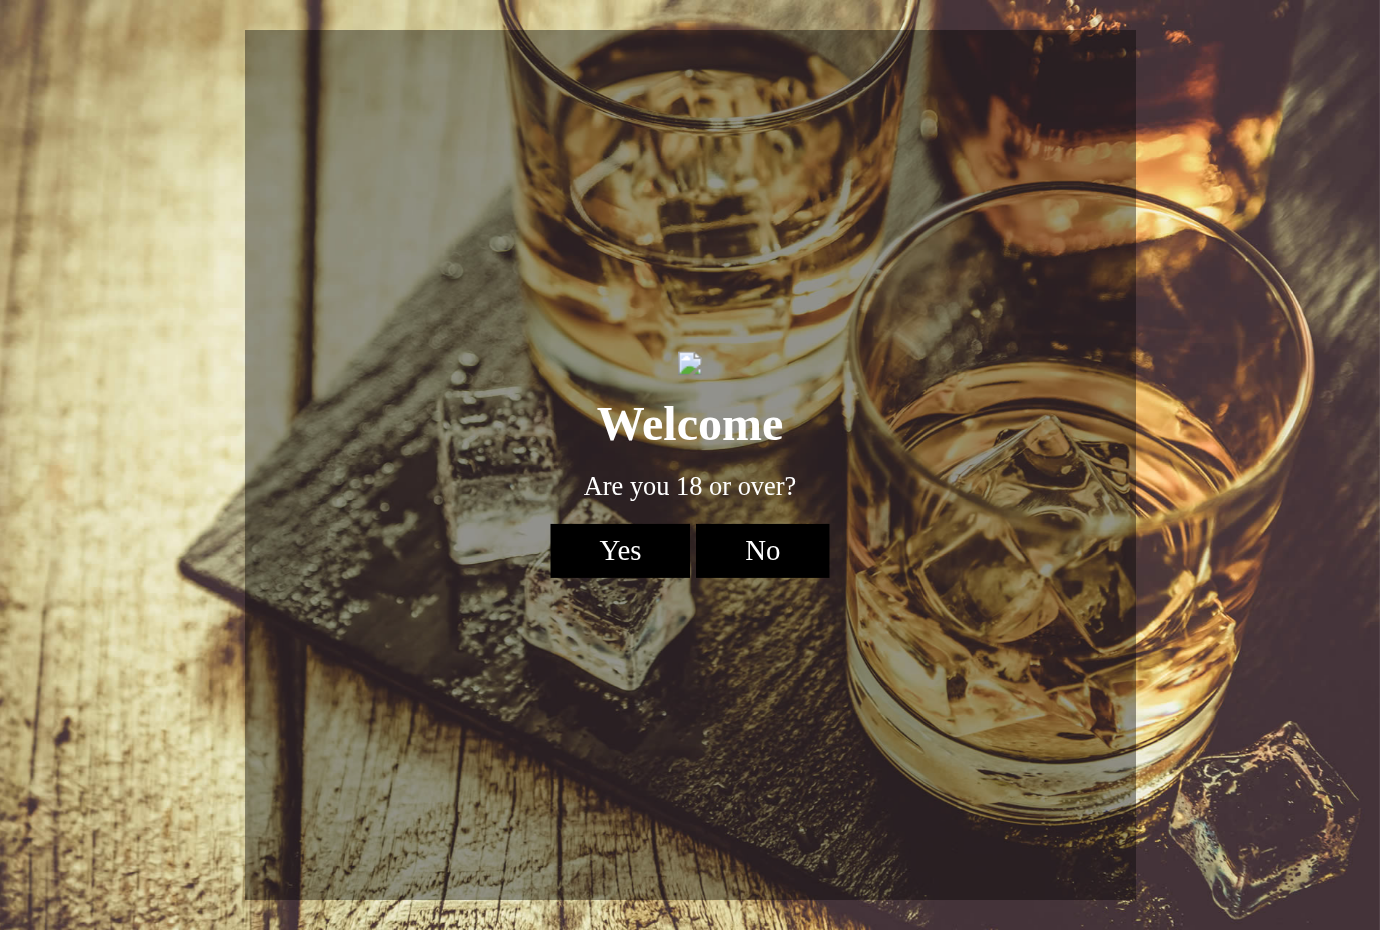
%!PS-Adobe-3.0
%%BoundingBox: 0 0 1380 930
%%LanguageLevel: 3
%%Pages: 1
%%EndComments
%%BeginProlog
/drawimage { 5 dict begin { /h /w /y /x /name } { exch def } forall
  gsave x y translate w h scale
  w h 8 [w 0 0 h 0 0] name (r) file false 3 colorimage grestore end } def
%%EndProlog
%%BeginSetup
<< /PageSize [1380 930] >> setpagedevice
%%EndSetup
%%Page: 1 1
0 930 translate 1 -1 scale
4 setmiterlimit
1 setgray
0 0 1380 930 rectfill
(images/1.raw) 0 0 1380 930 drawimage
(images/2.raw) 245 30 891 870 drawimage
showpage
%%EOF
